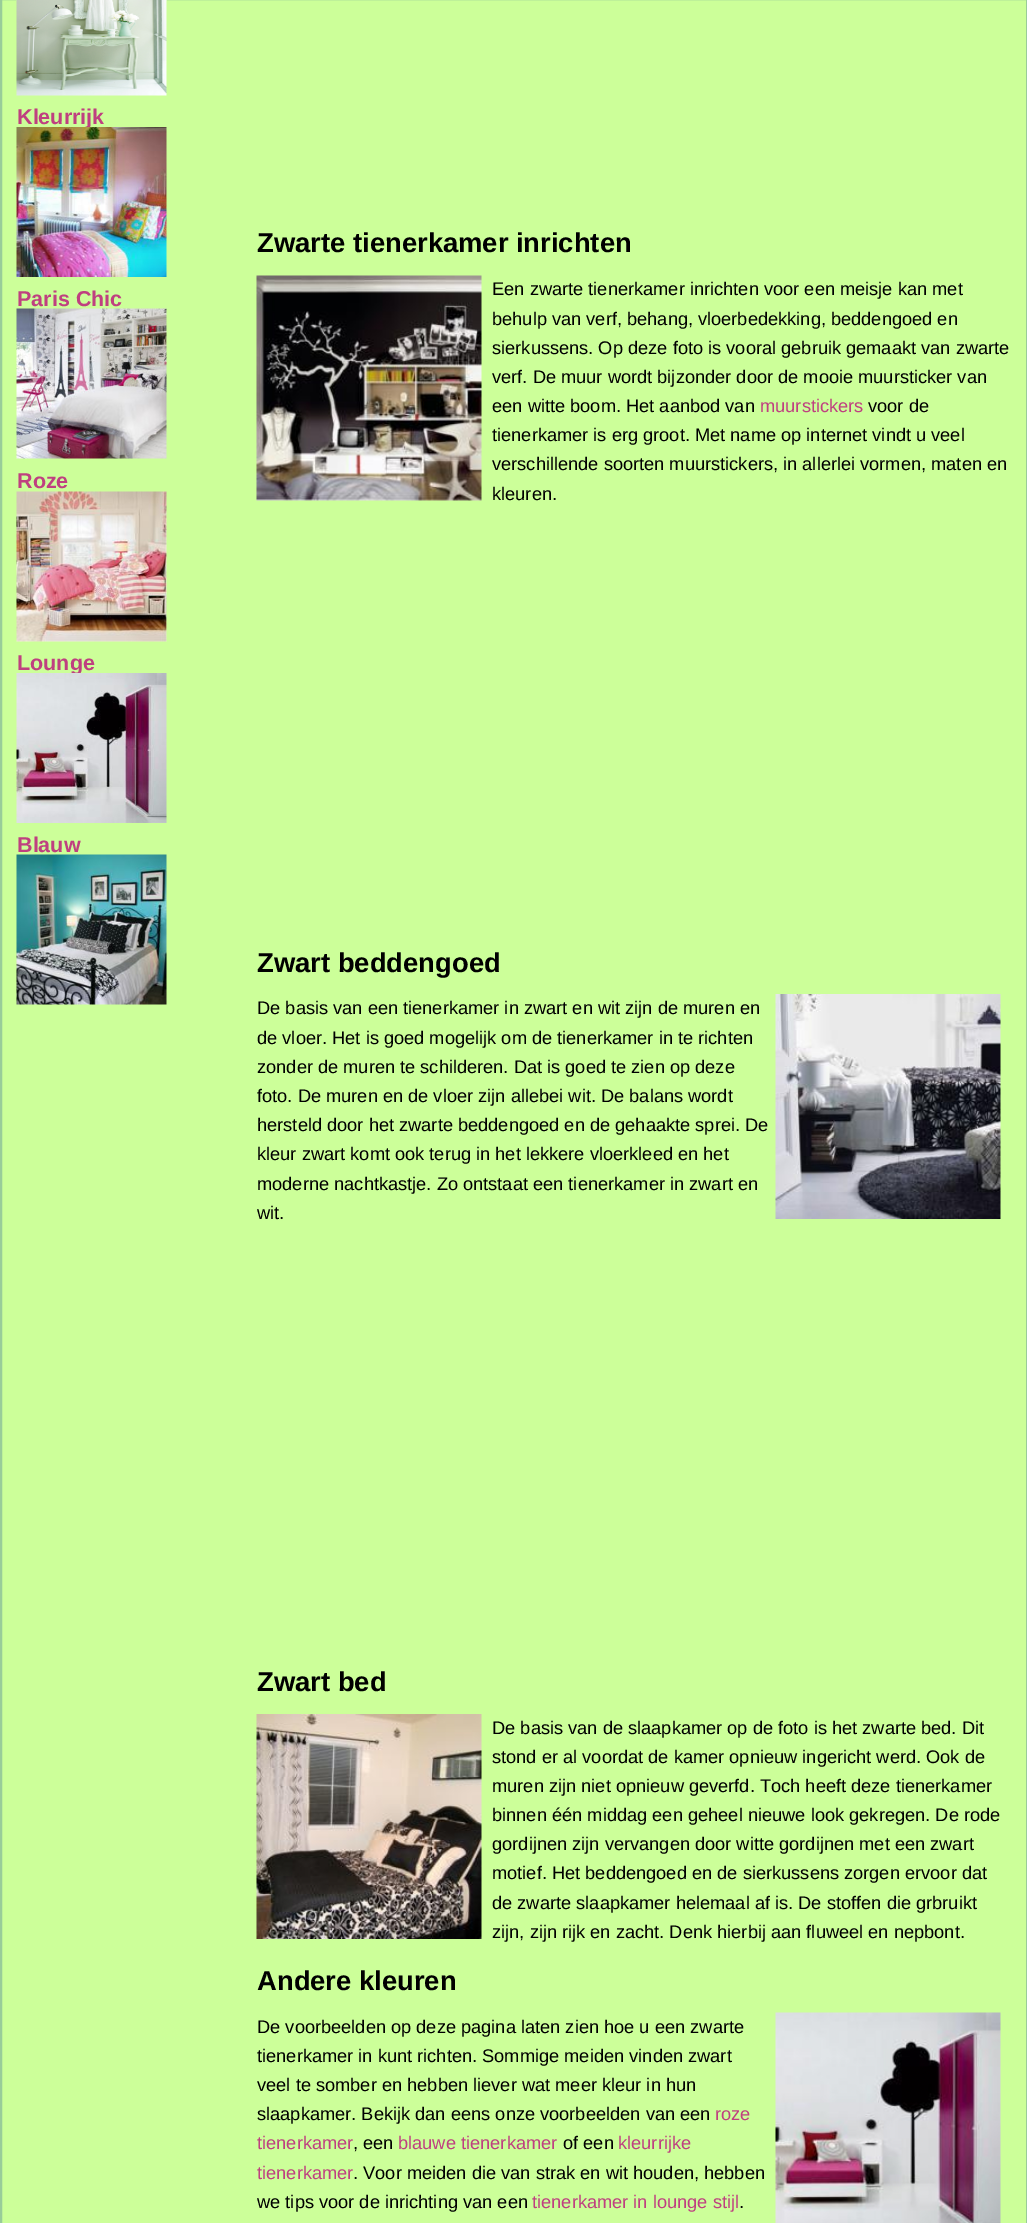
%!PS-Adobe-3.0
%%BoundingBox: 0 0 1027 2223
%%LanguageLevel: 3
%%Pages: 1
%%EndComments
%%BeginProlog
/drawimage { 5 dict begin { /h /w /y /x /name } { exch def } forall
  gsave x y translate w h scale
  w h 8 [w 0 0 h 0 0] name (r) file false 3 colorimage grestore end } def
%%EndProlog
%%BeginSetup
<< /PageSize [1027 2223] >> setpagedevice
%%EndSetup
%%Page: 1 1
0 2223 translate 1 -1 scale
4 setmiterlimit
0.8 1 0.6 setrgbcolor
0 0 1027 2223 rectfill
0.6 0.8 0.6 setrgbcolor
2 setlinewidth
1 -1 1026 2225 rectstroke
(images/1.raw) 16 0 151 96 drawimage
(images/3.raw) 16 308 151 151 drawimage
(images/4.raw) 16 491 151 151 drawimage
(images/6.raw) 16 854 151 151 drawimage
(images/7.raw) 256 275 226 226 drawimage
(images/8.raw) 775 994 226 225 drawimage
(images/9.raw) 256 1714 226 225 drawimage
(images/10.raw) 775 2012 226 211 drawimage
/LiberationSans-Bold [21.5 0 0 -21.5 0 0] selectfont
0.749 0.251 0.502 setrgbcolor
17 124 moveto (Kleurrijk) show
(images/2.raw) 16 127 151 150 drawimage
17 306 moveto (Paris Chic) show
17 488 moveto (Roze) show
17 670 moveto (Lounge) show
(images/5.raw) 16 673 151 150 drawimage
17 852 moveto (Blauw) show
/LiberationSans-Bold [27.4 0 0 -27.4 0 0] selectfont
0 setgray
257 252 moveto (Zwarte tienerkamer inrichten) show
/LiberationSans-Regular [18.25 0 0 -18.25 0 0] selectfont
492 295 moveto (Een zwarte tienerkamer inrichten voor een meisje kan met) show
492 325 moveto (behulp van verf, behang, vloerbedekking, beddengoed en) show
492 354 moveto (sierkussens. Op deze foto is vooral gebruik gemaakt van zwarte) show
492 383 moveto (verf. De muur wordt bijzonder door de mooie muursticker van) show
492 412 moveto (een witte boom. Het aanbod van) show
0.749 0.251 0.502 setrgbcolor
760 412 moveto (muurstickers) show
0 setgray
868 412 moveto (voor de) show
492 441 moveto (tienerkamer is erg groot. Met name op internet vindt u veel) show
492 470 moveto (verschillende soorten muurstickers, in allerlei vormen, maten en) show
492 500 moveto (kleuren.) show
/LiberationSans-Bold [27.4 0 0 -27.4 0 0] selectfont
257 972 moveto (Zwart beddengoed) show
/LiberationSans-Regular [18.25 0 0 -18.25 0 0] selectfont
257 1014 moveto (De basis van een tienerkamer in zwart en wit zijn de muren en) show
257 1044 moveto (de vloer. Het is goed mogelijk om de tienerkamer in te richten) show
257 1073 moveto (zonder de muren te schilderen. Dat is goed te zien op deze) show
257 1102 moveto (foto. De muren en de vloer zijn allebei wit. De balans wordt) show
257 1131 moveto (hersteld door het zwarte beddengoed en de gehaakte sprei. De) show
257 1160 moveto (kleur zwart komt ook terug in het lekkere vloerkleed en het) show
257 1190 moveto (moderne nachtkastje. Zo ontstaat een tienerkamer in zwart en) show
257 1219 moveto (wit.) show
/LiberationSans-Bold [27.4 0 0 -27.4 0 0] selectfont
257 1691 moveto (Zwart bed) show
/LiberationSans-Regular [18.25 0 0 -18.25 0 0] selectfont
492 1734 moveto (De basis van de slaapkamer op de foto is het zwarte bed. Dit) show
492 1763 moveto (stond er al voordat de kamer opnieuw ingericht werd. Ook de) show
492 1792 moveto (muren zijn niet opnieuw geverfd. Toch heeft deze tienerkamer) show
492 1821 moveto (binnen één middag een geheel nieuwe look gekregen. De rode) show
492 1850 moveto (gordijnen zijn vervangen door witte gordijnen met een zwart) show
492 1879 moveto (motief. Het beddengoed en de sierkussens zorgen ervoor dat) show
492 1909 moveto (de zwarte slaapkamer helemaal af is. De stoffen die grbruikt) show
492 1938 moveto (zijn, zijn rijk en zacht. Denk hierbij aan fluweel en nepbont.) show
/LiberationSans-Bold [27.4 0 0 -27.4 0 0] selectfont
257 1990 moveto (Andere kleuren) show
/LiberationSans-Regular [18.25 0 0 -18.25 0 0] selectfont
257 2033 moveto (De voorbeelden op deze pagina laten zien hoe u een zwarte) show
257 2062 moveto (tienerkamer in kunt richten. Sommige meiden vinden zwart) show
257 2091 moveto (veel te somber en hebben liever wat meer kleur in hun) show
257 2120 moveto (slaapkamer. Bekijk dan eens onze voorbeelden van een) show
0.749 0.251 0.502 setrgbcolor
715 2120 moveto (roze) show
257 2149 moveto (tienerkamer) show
0 setgray
353 2149 moveto (, een) show
0.749 0.251 0.502 setrgbcolor
398 2149 moveto (blauwe tienerkamer) show
0 setgray
563 2149 moveto (of een) show
0.749 0.251 0.502 setrgbcolor
618 2149 moveto (kleurrijke) show
257 2179 moveto (tienerkamer) show
0 setgray
353 2179 moveto (. Voor meiden die van strak en wit houden, hebben) show
257 2208 moveto (we tips voor de inrichting van een) show
0.749 0.251 0.502 setrgbcolor
532 2208 moveto (tienerkamer in lounge stijl) show
0 setgray
739 2208 moveto (.) show
showpage
%%EOF
